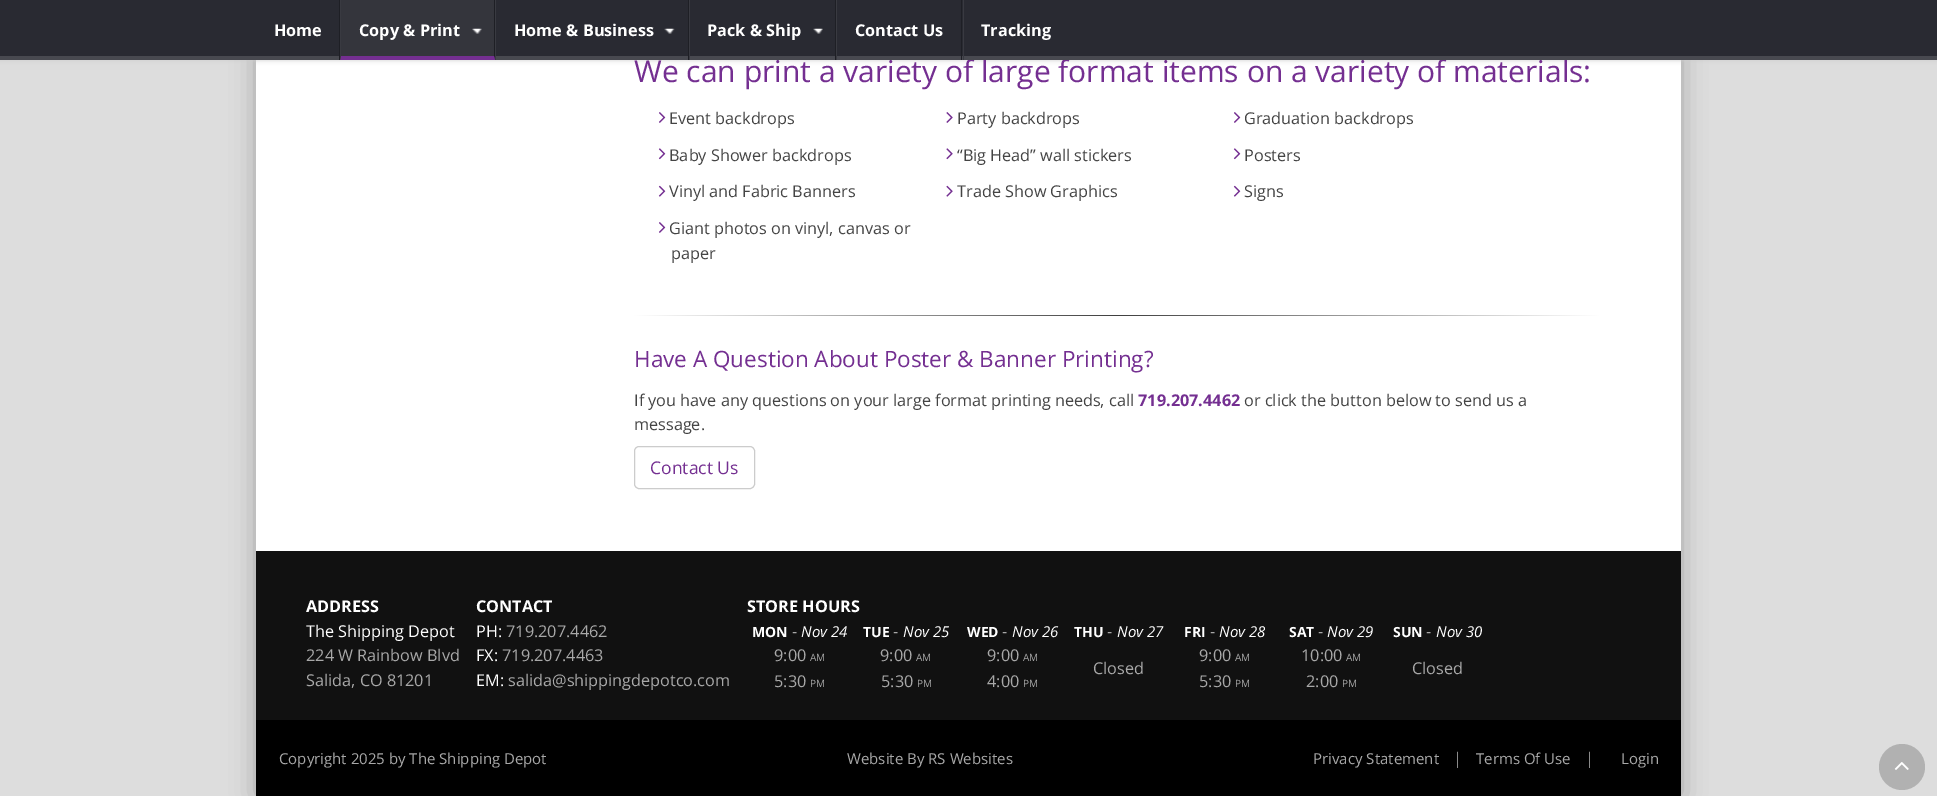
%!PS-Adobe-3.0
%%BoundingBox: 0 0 1937 796
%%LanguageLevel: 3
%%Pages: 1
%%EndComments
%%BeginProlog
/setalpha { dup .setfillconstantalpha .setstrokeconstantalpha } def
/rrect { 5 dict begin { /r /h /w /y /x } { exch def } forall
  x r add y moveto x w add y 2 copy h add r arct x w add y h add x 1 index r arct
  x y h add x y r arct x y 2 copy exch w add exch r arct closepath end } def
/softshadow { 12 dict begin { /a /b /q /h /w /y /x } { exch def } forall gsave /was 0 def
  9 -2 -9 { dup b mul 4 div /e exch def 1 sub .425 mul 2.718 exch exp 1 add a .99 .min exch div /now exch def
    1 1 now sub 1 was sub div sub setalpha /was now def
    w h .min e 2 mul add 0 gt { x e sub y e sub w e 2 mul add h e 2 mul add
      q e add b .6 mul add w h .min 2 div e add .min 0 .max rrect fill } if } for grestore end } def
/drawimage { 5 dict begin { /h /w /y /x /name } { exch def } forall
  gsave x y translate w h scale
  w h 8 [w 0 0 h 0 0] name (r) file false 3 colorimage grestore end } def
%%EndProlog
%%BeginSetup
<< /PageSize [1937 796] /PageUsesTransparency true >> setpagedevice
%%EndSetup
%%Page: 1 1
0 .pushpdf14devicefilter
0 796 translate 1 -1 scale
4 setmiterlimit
0.867 setgray
0 0 1937 796 rectfill
0.639 setgray
256 -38 1425 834 0 12.5 1 softshadow
1 setgray
256 60 1425 491 rectfill
0.8 setgray
0 0 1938 60 0 2.5 1 softshadow
0.161 0.165 0.196 setrgbcolor
0 0 1937 56 rectfill
0.204 0.208 0.235 setrgbcolor
341 0 153 56 rectfill
(images/1.raw) 472 28 10 6 drawimage
(images/2.raw) 664 28 11 6 drawimage
(images/3.raw) 813 28 10 6 drawimage
(images/4.raw) 659 112 7 11 drawimage
(images/5.raw) 946 112 7 11 drawimage
(images/4.raw) 1234 112 7 11 drawimage
(images/6.raw) 658 148 8 12 drawimage
(images/7.raw) 946 148 7 12 drawimage
(images/6.raw) 1233 148 8 12 drawimage
(images/8.raw) 658 185 8 12 drawimage
(images/9.raw) 946 185 7 12 drawimage
(images/8.raw) 1233 185 8 12 drawimage
(images/4.raw) 659 222 7 11 drawimage
gsave newpath 634 315 moveto 1600 315 lineto 1600 316 lineto 634 316 lineto closepath clip newpath
<< /ShadingType 2 /ColorSpace /DeviceRGB /Coords [634 316 1600 316] /Extend [true true] /Function << /FunctionType 3 /Domain [0 1] /Functions [<< /FunctionType 2 /Domain [0 1] /C0 [1 1 1] /C1 [0.251 0.251 0.251] /N 1 >> << /FunctionType 2 /Domain [0 1] /C0 [0.251 0.251 0.251] /C1 [1 1 1] /N 1 >>] /Bounds [0.5] /Encode [0 1 0 1] >> >> shfill grestore
0.8 setgray
634.5 446.5 120 42 4.5 rrect stroke
0.067 setgray
256 551 1425 169 rectfill
0 setgray
256 720 1425 76 rectfill
0.694 setgray
newpath 1902 767 23 0 360 arc closepath fill
(images/10.raw) 1894 762 15 8 drawimage
/OpenSans-Bold [16.25 0 0 -16.25 0 0] selectfont
1 setgray
274 36 moveto (Home) show
359 36 moveto (Copy & Print) show
514 36 moveto (Home & Business) show
707 36 moveto (Pack & Ship) show
855 36 moveto (Contact Us) show
981 36 moveto (Tracking) show
/OpenSans-Regular [30 0 0 -30 0 0] selectfont
0.455 0.184 0.569 setrgbcolor
634 82 moveto (We can print a variety of large format items on a variety of materials:) show
0.282 0.286 0.314 setrgbcolor
0 56 1937 4 rectfill
0.224 0.227 0.255 setrgbcolor
963 0 1 60 rectfill
836 0 1 60 rectfill
0.118 0.122 0.145 setrgbcolor
961 0 1 60 rectfill
0.224 0.227 0.255 setrgbcolor
689 0 1 60 rectfill
0.118 0.122 0.145 setrgbcolor
835 0 1 60 rectfill
0.224 0.227 0.255 setrgbcolor
495 0 1 60 rectfill
0.118 0.122 0.145 setrgbcolor
688 0 1 60 rectfill
newpath 495 0 moveto 495 60 lineto 494 56 lineto 494 0 lineto closepath fill
0.455 0.184 0.569 setrgbcolor
newpath 495 60 moveto 340 60 lineto 341 56 lineto 494 56 lineto closepath fill
0.224 0.227 0.255 setrgbcolor
newpath 340 60 moveto 340 0 lineto 341 0 lineto 341 56 lineto closepath fill
0.118 0.122 0.145 setrgbcolor
339 0 1 60 rectfill
/OpenSans-Regular [16.25 0 0 -16.25 0 0] selectfont
0.267 setgray
669 124 moveto (Event backdrops) show
957 124 moveto (Party backdrops) show
1244 124 moveto (Graduation backdrops) show
669 161 moveto (Baby Shower backdrops) show
957 161 moveto (“Big Head” wall stickers) show
1244 161 moveto (Posters) show
669 197 moveto (Vinyl and Fabric Banners) show
957 197 moveto (Trade Show Graphics) show
1244 197 moveto (Signs) show
669 234 moveto (Giant photos on vinyl, canvas or) show
671 259 moveto (paper) show
/OpenSans-Regular [22.5 0 0 -22.5 0 0] selectfont
0.455 0.184 0.569 setrgbcolor
634 367 moveto (Have A Question About Poster & Banner Printing?) show
/OpenSans-Regular [16.25 0 0 -16.25 0 0] selectfont
0.267 setgray
634 406 moveto (If you have any questions on your large format printing needs, call) show
/OpenSans-Bold [16.25 0 0 -16.25 0 0] selectfont
0.455 0.184 0.569 setrgbcolor
1138 406 moveto (719.207.4462) show
/OpenSans-Regular [16.25 0 0 -16.25 0 0] selectfont
0.267 setgray
1244 406 moveto (or click the button below to send us a) show
634 430 moveto (message.) show
/OpenSans-Regular [17.5 0 0 -17.5 0 0] selectfont
0.455 0.184 0.569 setrgbcolor
650 474 moveto (Contact Us) show
/OpenSans-Bold [16.25 0 0 -16.25 0 0] selectfont
1 setgray
306 612 moveto (ADDRESS) show
/OpenSans-Regular [16.25 0 0 -16.25 0 0] selectfont
306 637 moveto (The Shipping Depot) show
0.659 setgray
306 661 moveto (224 W Rainbow Blvd) show
306 686 moveto (Salida, CO 81201) show
/OpenSans-Bold [16.25 0 0 -16.25 0 0] selectfont
1 setgray
476 612 moveto (CONTACT) show
/OpenSans-Regular [16.25 0 0 -16.25 0 0] selectfont
476 637 moveto (PH:) show
0.659 setgray
506 637 moveto (719.207.4462) show
1 setgray
476 661 moveto (FX:) show
0.659 setgray
502 661 moveto (719.207.4463) show
1 setgray
476 686 moveto (EM:) show
0.659 setgray
508 686 moveto (salida@shippingdepotco.com) show
/OpenSans-Bold [16.25 0 0 -16.25 0 0] selectfont
1 setgray
747 612 moveto (STORE HOURS) show
/OpenSans-Bold [14 0 0 -14 0 0] selectfont
752 637 moveto (MON) show
/OpenSans-Regular [16.25 0 0 -16.25 0 0] selectfont
0.659 setgray
792 637 moveto (-) show
/OpenSans-Italic [15 0 0 -15 0 0] selectfont
1 setgray
801 637 moveto (Nov 24) show
/OpenSans-Regular [16.25 0 0 -16.25 0 0] selectfont
0.659 setgray
774 661 moveto (9:00) show
/OpenSans-Regular [10 0 0 -10 0 0] selectfont
810 661 moveto (AM) show
/OpenSans-Regular [16.25 0 0 -16.25 0 0] selectfont
774 687 moveto (5:30) show
/OpenSans-Regular [10 0 0 -10 0 0] selectfont
810 687 moveto (PM) show
/OpenSans-Bold [14 0 0 -14 0 0] selectfont
1 setgray
863 637 moveto (TUE) show
/OpenSans-Regular [16.25 0 0 -16.25 0 0] selectfont
0.659 setgray
893 637 moveto (-) show
/OpenSans-Italic [15 0 0 -15 0 0] selectfont
1 setgray
903 637 moveto (Nov 25) show
/OpenSans-Regular [16.25 0 0 -16.25 0 0] selectfont
0.659 setgray
880 661 moveto (9:00) show
/OpenSans-Regular [10 0 0 -10 0 0] selectfont
916 661 moveto (AM) show
/OpenSans-Regular [16.25 0 0 -16.25 0 0] selectfont
881 687 moveto (5:30) show
/OpenSans-Regular [10 0 0 -10 0 0] selectfont
917 687 moveto (PM) show
/OpenSans-Bold [14 0 0 -14 0 0] selectfont
1 setgray
967 637 moveto (WED) show
/OpenSans-Regular [16.25 0 0 -16.25 0 0] selectfont
0.659 setgray
1002 637 moveto (-) show
/OpenSans-Italic [15 0 0 -15 0 0] selectfont
1 setgray
1012 637 moveto (Nov 26) show
/OpenSans-Regular [16.25 0 0 -16.25 0 0] selectfont
0.659 setgray
987 661 moveto (9:00) show
/OpenSans-Regular [10 0 0 -10 0 0] selectfont
1023 661 moveto (AM) show
/OpenSans-Regular [16.25 0 0 -16.25 0 0] selectfont
987 687 moveto (4:00) show
/OpenSans-Regular [10 0 0 -10 0 0] selectfont
1023 687 moveto (PM) show
/OpenSans-Bold [14 0 0 -14 0 0] selectfont
1 setgray
1074 637 moveto (THU) show
/OpenSans-Regular [16.25 0 0 -16.25 0 0] selectfont
0.659 setgray
1107 637 moveto (-) show
/OpenSans-Italic [15 0 0 -15 0 0] selectfont
1 setgray
1117 637 moveto (Nov 27) show
/OpenSans-Regular [16.25 0 0 -16.25 0 0] selectfont
0.659 setgray
1093 674 moveto (Closed) show
/OpenSans-Bold [14 0 0 -14 0 0] selectfont
1 setgray
1184 637 moveto (FRI) show
/OpenSans-Regular [16.25 0 0 -16.25 0 0] selectfont
0.659 setgray
1210 637 moveto (-) show
/OpenSans-Italic [15 0 0 -15 0 0] selectfont
1 setgray
1219 637 moveto (Nov 28) show
/OpenSans-Regular [16.25 0 0 -16.25 0 0] selectfont
0.659 setgray
1199 661 moveto (9:00) show
/OpenSans-Regular [10 0 0 -10 0 0] selectfont
1235 661 moveto (AM) show
/OpenSans-Regular [16.25 0 0 -16.25 0 0] selectfont
1199 687 moveto (5:30) show
/OpenSans-Regular [10 0 0 -10 0 0] selectfont
1235 687 moveto (PM) show
/OpenSans-Bold [14 0 0 -14 0 0] selectfont
1 setgray
1289 637 moveto (SAT) show
/OpenSans-Regular [16.25 0 0 -16.25 0 0] selectfont
0.659 setgray
1318 637 moveto (-) show
/OpenSans-Italic [15 0 0 -15 0 0] selectfont
1 setgray
1327 637 moveto (Nov 29) show
/OpenSans-Regular [16.25 0 0 -16.25 0 0] selectfont
0.659 setgray
1301 661 moveto (10:00) show
/OpenSans-Regular [10 0 0 -10 0 0] selectfont
1346 661 moveto (AM) show
/OpenSans-Regular [16.25 0 0 -16.25 0 0] selectfont
1306 687 moveto (2:00) show
/OpenSans-Regular [10 0 0 -10 0 0] selectfont
1342 687 moveto (PM) show
/OpenSans-Bold [14 0 0 -14 0 0] selectfont
1 setgray
1393 637 moveto (SUN) show
/OpenSans-Regular [16.25 0 0 -16.25 0 0] selectfont
0.659 setgray
1426 637 moveto (-) show
/OpenSans-Italic [15 0 0 -15 0 0] selectfont
1 setgray
1436 637 moveto (Nov 30) show
/OpenSans-Regular [16.25 0 0 -16.25 0 0] selectfont
0.659 setgray
1412 674 moveto (Closed) show
/OpenSans-Regular [15 0 0 -15 0 0] selectfont
279 764 moveto (Copyright 2025 by The Shipping Depot) show
847 764 moveto (Website By RS Websites) show
1313 764 moveto (Privacy Statement) show
/OpenSans-Regular [16.25 0 0 -16.25 0 0] selectfont
0.541 setgray
1453 764 moveto (|) show
/OpenSans-Regular [15 0 0 -15 0 0] selectfont
0.659 setgray
1476 764 moveto (Terms Of Use) show
/OpenSans-Regular [16.25 0 0 -16.25 0 0] selectfont
0.541 setgray
1585 764 moveto (|) show
/OpenSans-Regular [15 0 0 -15 0 0] selectfont
0.659 setgray
1621 764 moveto (Login) show
.poppdf14devicefilter showpage
%%EOF
